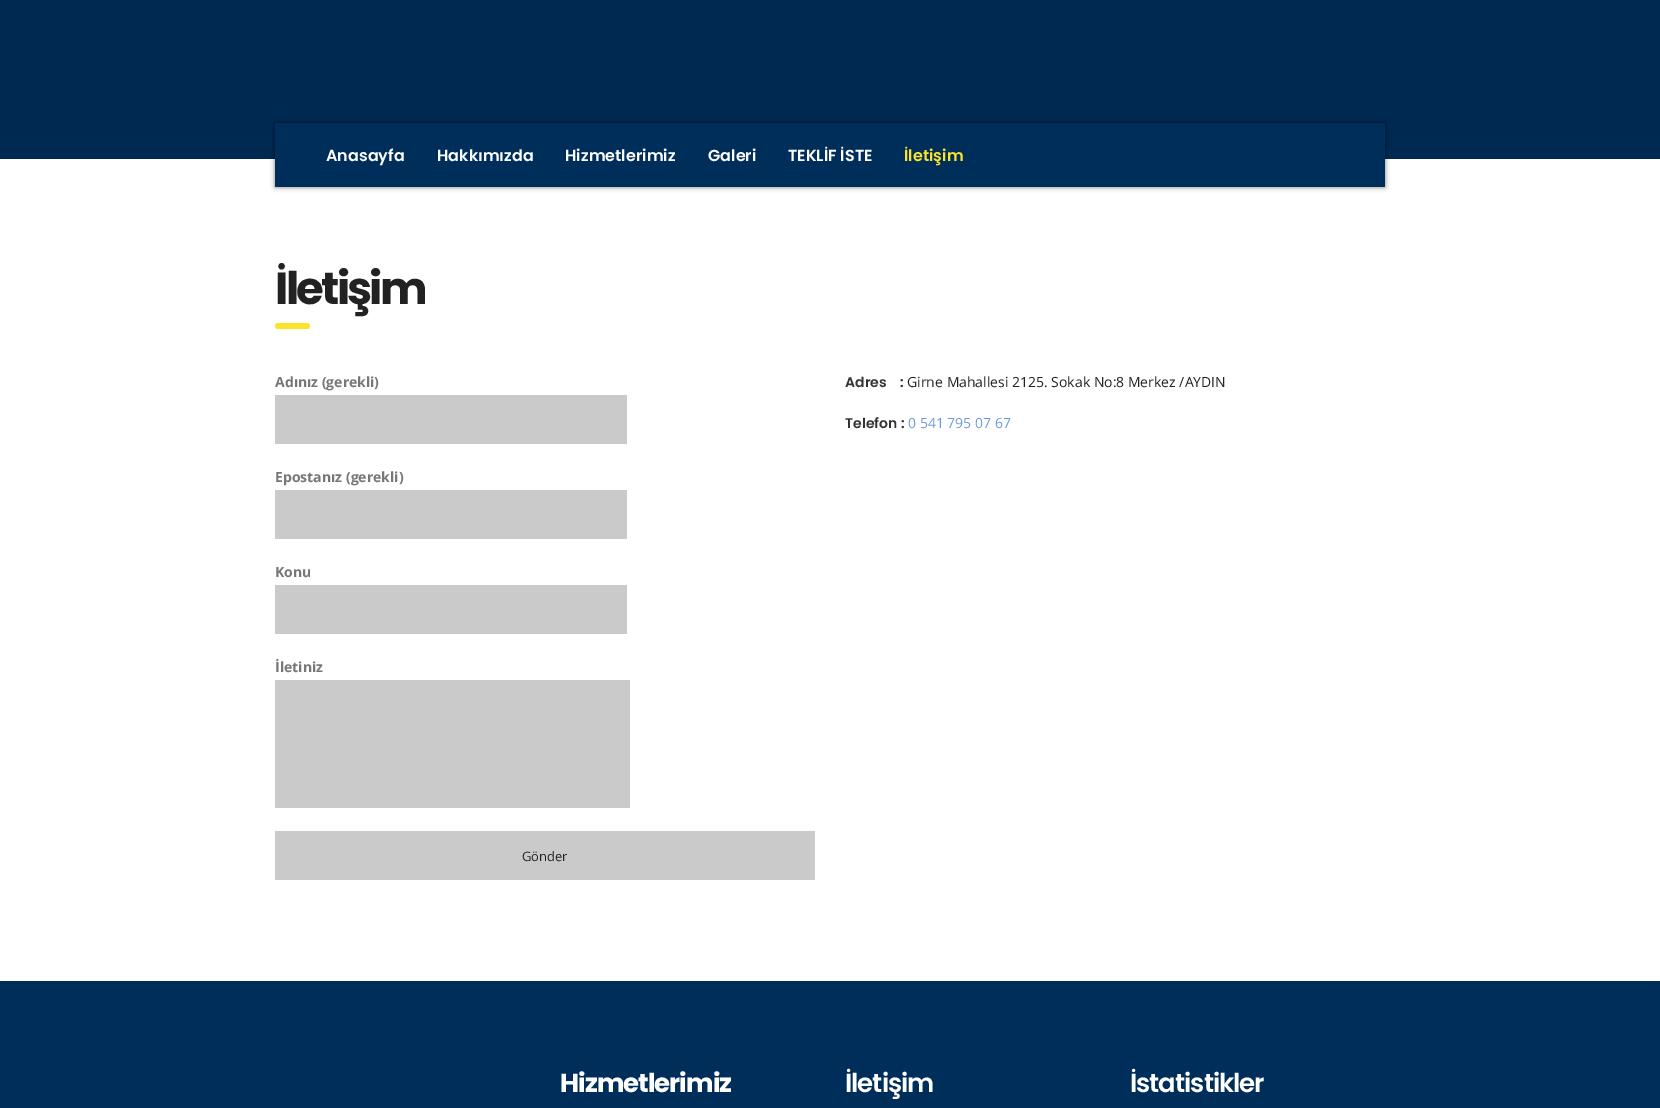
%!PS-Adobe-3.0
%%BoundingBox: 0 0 1660 1108
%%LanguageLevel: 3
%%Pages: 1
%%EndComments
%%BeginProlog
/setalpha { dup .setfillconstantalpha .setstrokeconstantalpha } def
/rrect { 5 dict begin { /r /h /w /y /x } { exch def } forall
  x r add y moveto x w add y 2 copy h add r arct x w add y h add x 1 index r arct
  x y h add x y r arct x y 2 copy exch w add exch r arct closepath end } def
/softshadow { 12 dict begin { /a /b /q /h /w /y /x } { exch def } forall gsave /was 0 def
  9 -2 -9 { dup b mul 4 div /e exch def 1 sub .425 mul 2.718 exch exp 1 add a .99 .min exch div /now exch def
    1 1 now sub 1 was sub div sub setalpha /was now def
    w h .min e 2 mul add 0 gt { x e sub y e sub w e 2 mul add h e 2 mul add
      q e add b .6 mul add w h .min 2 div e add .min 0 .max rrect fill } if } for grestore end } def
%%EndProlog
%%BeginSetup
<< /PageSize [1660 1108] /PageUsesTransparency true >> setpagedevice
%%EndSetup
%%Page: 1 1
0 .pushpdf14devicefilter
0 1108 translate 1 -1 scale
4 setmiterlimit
1 setgray
0 0 1660 1108 rectfill
0 0.161 0.322 setrgbcolor
0 0 1660 159 rectfill
0 setgray
275 123 1110 64 0 2.5 0.52 softshadow
0 0.18 0.357 setrgbcolor
275 123 1110 64 rectfill
0.992 0.894 0.157 setrgbcolor
275 323 35 6 3 rrect fill
0.792 setgray
275 395 352 49 rectfill
275 490 352 49 rectfill
275 585 352 49 rectfill
275 680 355 128 rectfill
275 831 540 49 rectfill
0 0.18 0.357 setrgbcolor
0 981 1660 127 rectfill
/Poppins-SemiBold [16 0 0 -16 0 0] selectfont
1 setgray
326 161 moveto (Anasayfa) show
437 161 moveto (Hakkımızda) show
565 161 moveto (Hizmetlerimiz) show
708 161 moveto (Galeri) show
788 161 moveto (TEKLİF İSTE) show
0.992 0.894 0.157 setrgbcolor
904 161 moveto (İletişim) show
/Poppins-Bold [45 0 0 -45 0 0] selectfont
0.133 setgray
275 304 moveto -2.75 0 (İletişim) ashow
/OpenSans-Bold [14 0 0 -14 0 0] selectfont
0.467 setgray
275 387 moveto (Adınız \(gerekli\)) show
275 482 moveto (Epostanız \(gerekli\)) show
275 577 moveto (Konu) show
275 672 moveto (İletiniz) show
/OpenSans-Regular [13 0 0 -13 0 0] selectfont
0.133 setgray
522 861 moveto (Gönder) show
/Poppins-SemiBold [14 0 0 -14 0 0] selectfont
0.2 setgray
845 387 moveto (Adres    :) show
/OpenSans-Regular [14 0 0 -14 0 0] selectfont
0.133 setgray
907 387 moveto (Girne Mahallesi 2125. Sokak No:8 Merkez /AYDIN) show
/Poppins-SemiBold [14 0 0 -14 0 0] selectfont
0.2 setgray
845 428 moveto (Telefon :) show
/OpenSans-Regular [14 0 0 -14 0 0] selectfont
0.424 0.596 0.882 setrgbcolor
908 428 moveto (0 541 795 07 67) show
/Poppins-Bold [26 0 0 -26 0 0] selectfont
1 setgray
560 1092 moveto -1 0 (Hizmetlerimiz) ashow
/Poppins-SemiBold [26 0 0 -26 0 0] selectfont
845 1092 moveto -1 0 (İletişim) ashow
1130 1092 moveto -1 0 (İstatistikler) ashow
.poppdf14devicefilter showpage
%%EOF
